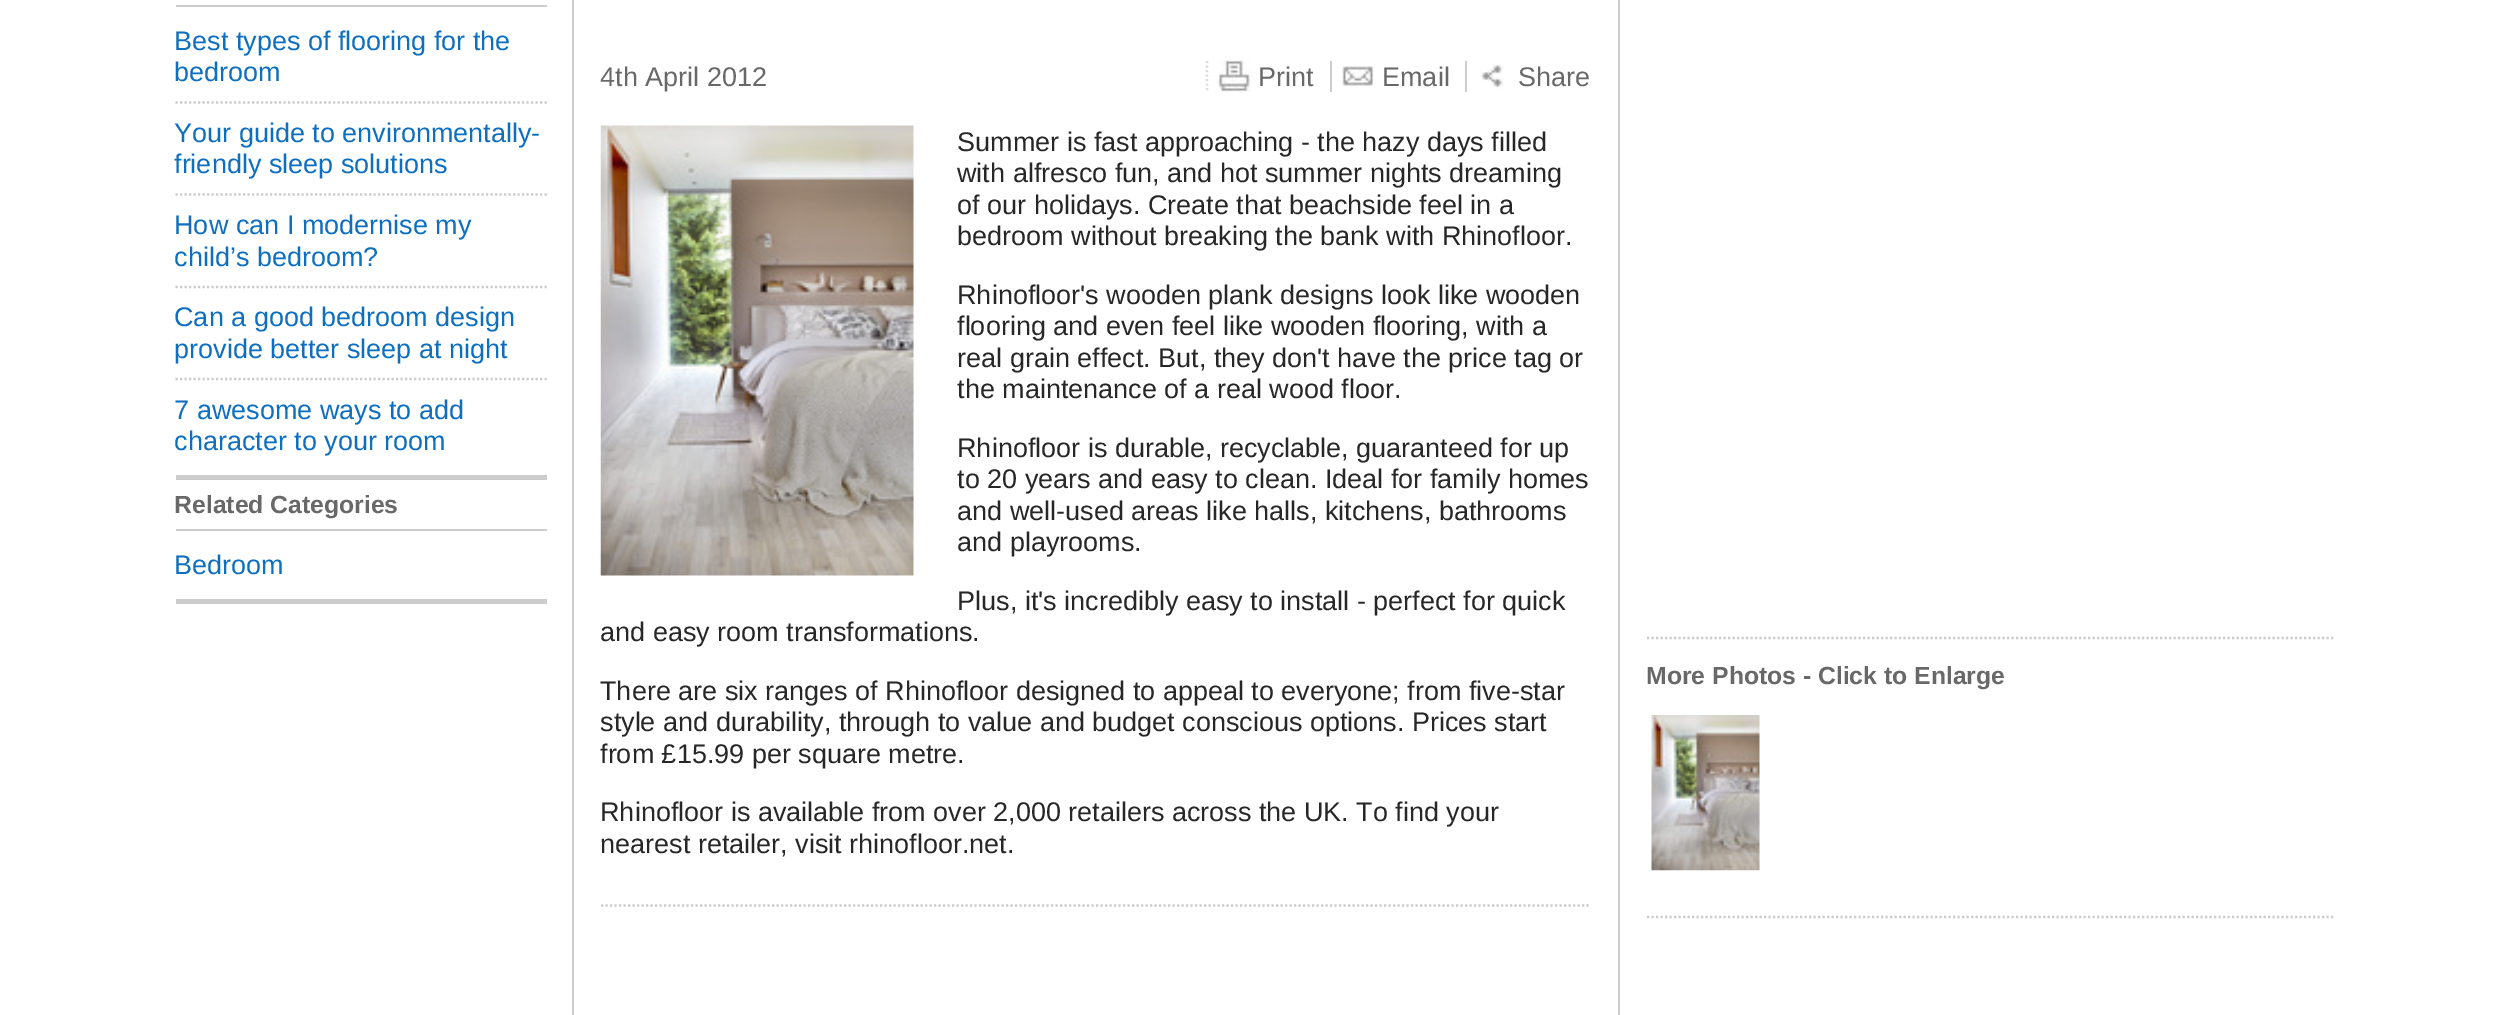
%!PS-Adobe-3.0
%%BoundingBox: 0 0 2507 1015
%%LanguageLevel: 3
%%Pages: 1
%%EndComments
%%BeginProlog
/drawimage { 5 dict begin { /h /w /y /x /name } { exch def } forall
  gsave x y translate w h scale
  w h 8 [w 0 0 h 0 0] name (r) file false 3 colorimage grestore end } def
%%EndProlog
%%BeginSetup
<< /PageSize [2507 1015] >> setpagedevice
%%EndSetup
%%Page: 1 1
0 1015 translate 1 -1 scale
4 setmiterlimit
1 setgray
0 0 2507 1015 rectfill
0.8 setgray
176 5 371 2 rectfill
2.2 setlinewidth
[2.25 2.25] 0 setdash
newpath 175.5 102.5 moveto 547 102.5 lineto stroke
newpath 175.5 194.5 moveto 547 194.5 lineto stroke
newpath 175.5 287 moveto 547 287 lineto stroke
newpath 175.5 379 moveto 547 379 lineto stroke
176 475 371 5 rectfill
176 529 371 2 rectfill
176 599 371 5 rectfill
1618 0 2 1015 rectfill
572 0 2 1015 rectfill
(images/1.raw) 1217 60 34 32 drawimage
0.867 setgray
newpath 1207 61 moveto 1207 92 lineto stroke
(images/2.raw) 1342 66 32 20 drawimage
0.8 setgray
1330 61 2 31 rectfill
(images/3.raw) 1480 64 24 26 drawimage
1465 61 2 31 rectfill
(images/4.raw) 600 125 314 451 drawimage
newpath 601 905.5 moveto 1591 905.5 lineto stroke
newpath 1647 638 moveto 2335.5 638 lineto stroke
newpath 1647 917 moveto 2335.5 917 lineto stroke
(images/5.raw) 1651 715 109 156 drawimage
/LiberationSans-Regular [27 0 0 -27 0 0] selectfont
0.055 0.435 0.753 setrgbcolor
174 50 moveto (Best types of flooring for the) show
174 81 moveto (bedroom) show
174 142 moveto (Your guide to environmentally-) show
174 173 moveto (friendly sleep solutions) show
174 234 moveto (How can I modernise my) show
174 266 moveto (child’s bedroom?) show
174 326 moveto (Can a good bedroom design) show
174 358 moveto (provide better sleep at night) show
174 419 moveto (7 awesome ways to add) show
174 450 moveto (character to your room) show
/LiberationSans-Bold [24.75 0 0 -24.75 0 0] selectfont
0.408 setgray
174 513 moveto (Related Categories) show
/LiberationSans-Regular [27 0 0 -27 0 0] selectfont
0.055 0.435 0.753 setrgbcolor
174 574 moveto (Bedroom) show
0.408 setgray
600 86 moveto (4th April 2012) show
1258 86 moveto (Print) show
1382 86 moveto (Email) show
1518 86 moveto (Share) show
0.153 setgray
957 151 moveto (Summer is fast approaching - the hazy days filled) show
957 182 moveto (with alfresco fun, and hot summer nights dreaming) show
957 214 moveto (of our holidays. Create that beachside feel in a) show
957 245 moveto (bedroom without breaking the bank with Rhinofloor.) show
957 304 moveto (Rhinofloor's wooden plank designs look like wooden) show
957 335 moveto (flooring and even feel like wooden flooring, with a) show
957 367 moveto (real grain effect. But, they don't have the price tag or) show
957 398 moveto (the maintenance of a real wood floor.) show
957 457 moveto (Rhinofloor is durable, recyclable, guaranteed for up) show
957 488 moveto (to 20 years and easy to clean. Ideal for family homes) show
957 520 moveto (and well-used areas like halls, kitchens, bathrooms) show
957 551 moveto (and playrooms.) show
957 610 moveto (Plus, it's incredibly easy to install - perfect for quick) show
600 641 moveto (and easy room transformations.) show
600 700 moveto (There are six ranges of Rhinofloor designed to appeal to everyone; from five-star) show
600 731 moveto (style and durability, through to value and budget conscious options. Prices start) show
600 763 moveto (from £15.99 per square metre.) show
600 821 moveto (Rhinofloor is available from over 2,000 retailers across the UK. To find your) show
600 853 moveto (nearest retailer, visit rhinofloor.net.) show
/LiberationSans-Bold [24.75 0 0 -24.75 0 0] selectfont
0.408 setgray
1646 684 moveto (More Photos - Click to Enlarge) show
showpage
%%EOF
